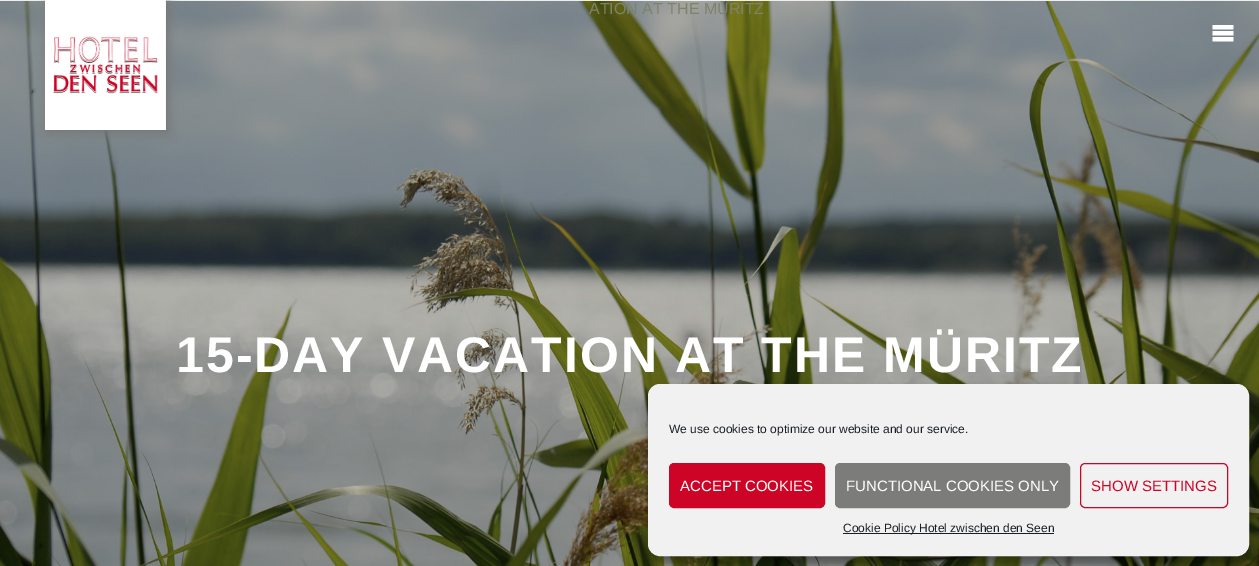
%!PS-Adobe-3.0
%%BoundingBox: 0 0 1259 566
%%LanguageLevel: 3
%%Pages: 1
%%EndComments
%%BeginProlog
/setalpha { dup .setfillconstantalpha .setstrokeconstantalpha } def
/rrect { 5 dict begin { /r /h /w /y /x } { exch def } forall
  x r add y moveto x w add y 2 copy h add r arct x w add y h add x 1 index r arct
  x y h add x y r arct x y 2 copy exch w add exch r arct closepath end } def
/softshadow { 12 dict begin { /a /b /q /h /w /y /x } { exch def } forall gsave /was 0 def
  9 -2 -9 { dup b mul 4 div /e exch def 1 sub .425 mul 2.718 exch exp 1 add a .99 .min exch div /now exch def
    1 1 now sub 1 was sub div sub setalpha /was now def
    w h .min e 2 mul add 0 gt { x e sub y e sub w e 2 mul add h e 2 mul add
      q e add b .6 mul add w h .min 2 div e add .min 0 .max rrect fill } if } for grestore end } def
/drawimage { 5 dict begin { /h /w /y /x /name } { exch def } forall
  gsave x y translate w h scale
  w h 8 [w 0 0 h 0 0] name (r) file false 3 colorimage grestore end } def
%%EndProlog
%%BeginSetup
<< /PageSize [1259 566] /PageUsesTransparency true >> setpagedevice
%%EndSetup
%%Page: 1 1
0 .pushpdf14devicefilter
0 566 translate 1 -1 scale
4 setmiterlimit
0.933 setgray
0 0 1259 566 rectfill
(images/3.raw) 0 1 1259 565 drawimage
0.467 setgray
48 3 121 130 0 5 1 softshadow
(images/1.raw) 45 0 121 130 drawimage
(images/2.raw) 1212 25 22 17 drawimage
0 setgray
648 390 601 172 12 3 0.23 softshadow
648 394 601 172 12 10 0.19 softshadow
0.945 setgray
648.5 384.5 600 171 11.5 rrect gsave fill grestore
stroke
0.804 0.016 0.149 setrgbcolor
669.5 463.5 155 44 4.5 rrect gsave fill grestore
stroke
0.486 0.486 0.482 setrgbcolor
835.5 463.5 234 44 4.5 rrect gsave fill grestore
stroke
0.804 0.016 0.149 setrgbcolor
1080.5 463.5 147 44 4.5 rrect stroke
0.098 0.118 0.137 setrgbcolor
843 533 211 1 rectfill
gsave
0 1 1259 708 rectclip
/LiberationSans-Regular [16 0 0 -16 0 0] selectfont
0.486 0.51 0.424 setrgbcolor
589 14 moveto (ATION AT THE MÜRITZ) show
grestore
/LiberationSans-Bold [50 0 0 -50 0 0] selectfont
1 setgray
176 372 moveto 2 0 (15-DAY VACATION AT THE MÜRITZ) ashow
/LiberationSans-Regular [12 0 0 -12 0 0] selectfont
0.098 0.118 0.137 setrgbcolor
669 433 moveto (We use cookies to optimize our website and our service.) show
/LiberationSans-Regular [15 0 0 -15 0 0] selectfont
1 setgray
680 491 moveto (ACCEPT COOKIES) show
846 491 moveto (FUNCTIONAL COOKIES ONLY) show
0.804 0.016 0.149 setrgbcolor
1091 491 moveto (SHOW SETTINGS) show
/LiberationSans-Regular [12 0 0 -12 0 0] selectfont
0.098 0.118 0.137 setrgbcolor
843 532 moveto (Cookie Policy Hotel zwischen den Seen) show
.poppdf14devicefilter showpage
%%EOF
